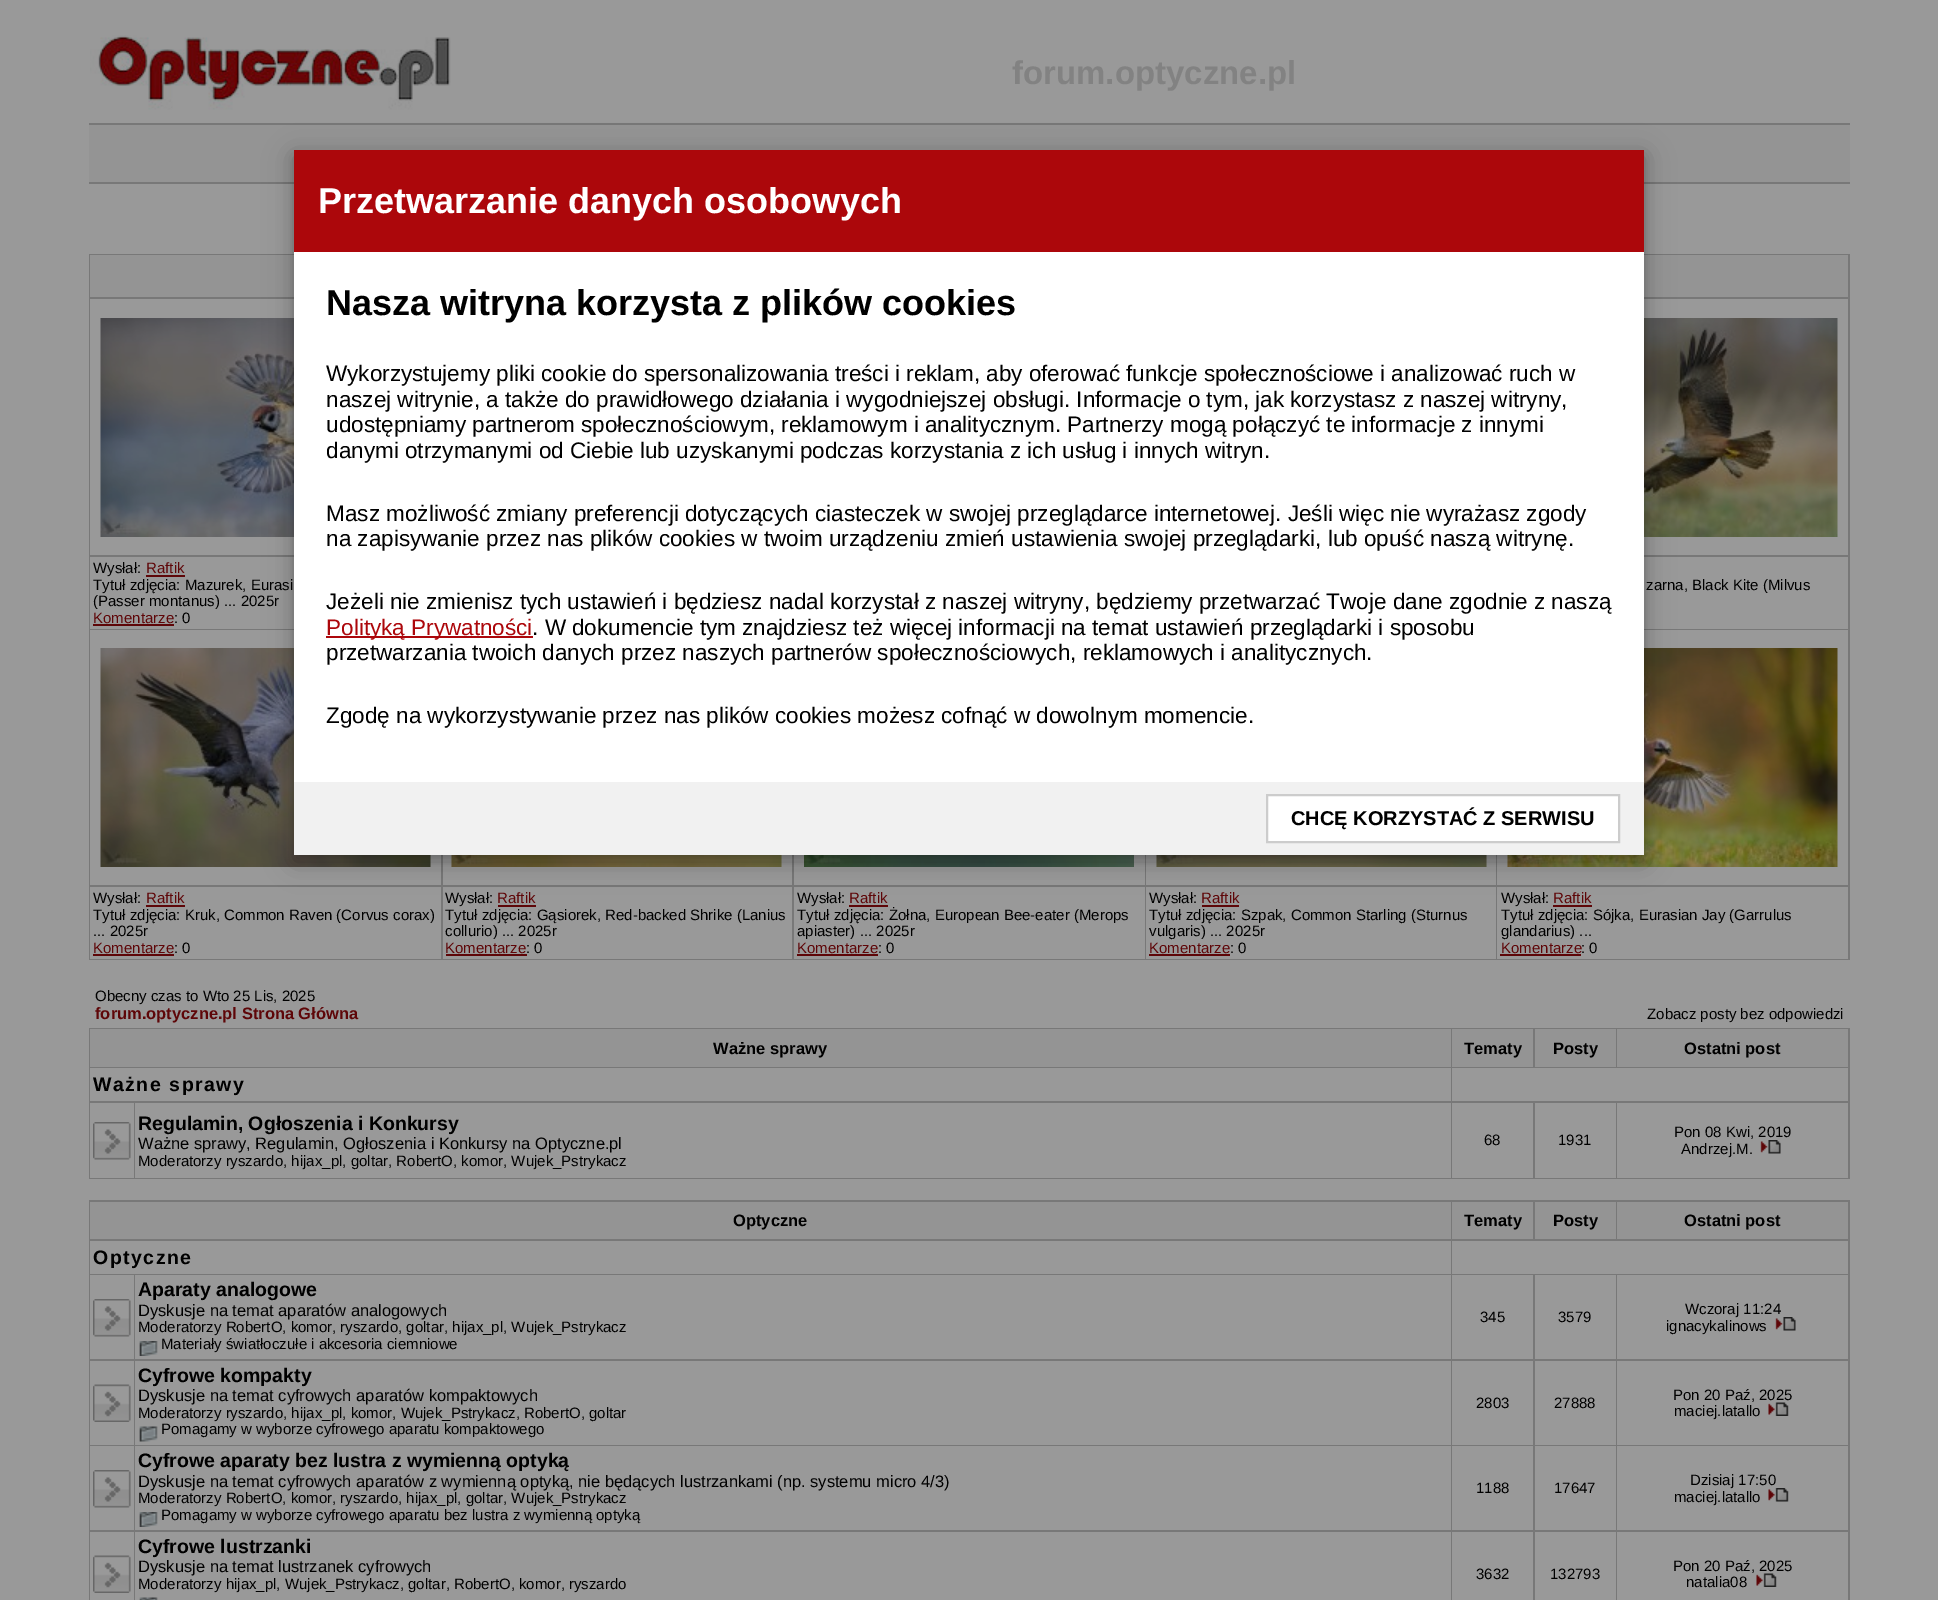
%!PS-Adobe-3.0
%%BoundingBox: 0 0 1938 1600
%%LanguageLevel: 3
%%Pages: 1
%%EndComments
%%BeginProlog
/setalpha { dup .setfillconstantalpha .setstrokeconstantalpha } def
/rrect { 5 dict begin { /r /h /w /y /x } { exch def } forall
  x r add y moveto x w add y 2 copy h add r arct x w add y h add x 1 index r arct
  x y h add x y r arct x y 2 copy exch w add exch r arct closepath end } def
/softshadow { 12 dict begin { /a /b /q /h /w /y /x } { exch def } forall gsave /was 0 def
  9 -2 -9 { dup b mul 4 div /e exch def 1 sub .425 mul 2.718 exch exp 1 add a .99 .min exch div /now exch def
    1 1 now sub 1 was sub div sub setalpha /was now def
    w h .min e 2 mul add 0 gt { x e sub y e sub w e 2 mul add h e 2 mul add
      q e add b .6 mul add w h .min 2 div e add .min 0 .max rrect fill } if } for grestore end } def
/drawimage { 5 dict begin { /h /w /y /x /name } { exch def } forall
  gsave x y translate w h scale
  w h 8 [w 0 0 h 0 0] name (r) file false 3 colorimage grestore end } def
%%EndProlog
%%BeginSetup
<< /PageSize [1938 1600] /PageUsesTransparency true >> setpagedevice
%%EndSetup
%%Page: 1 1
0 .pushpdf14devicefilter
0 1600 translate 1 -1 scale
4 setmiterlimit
0.6 setgray
0 0 1938 1600 rectfill
(images/1.raw) 90 35 361 75 drawimage
0.58 setgray
89 125 1761 57 rectfill
0.471 setgray
89 123 1761 2 rectfill
89 182 1761 2 rectfill
89 254 1761 706 rectfill
0.58 setgray
90 255 1758 42 rectfill
0.6 setgray
90 299 204 256 rectfill
(images/2.raw) 100 318 194 219 drawimage
1644 299 204 256 rectfill
(images/3.raw) 1644 318 194 219 drawimage
90 557 204 72 rectfill
0.369 0.024 0.031 setrgbcolor
146 575 39 2 rectfill
93 624 81 2 rectfill
0.6 setgray
1644 557 204 72 rectfill
90 630 351 255 rectfill
(images/4.raw) 100 648 331 219 drawimage
443 855 349 30 rectfill
(images/5.raw) 451 855 331 12 drawimage
794 855 351 30 rectfill
(images/6.raw) 804 855 330 12 drawimage
1146 855 350 30 rectfill
(images/7.raw) 1156 855 331 12 drawimage
1497 630 351 255 rectfill
(images/8.raw) 1507 648 331 219 drawimage
90 887 351 72 rectfill
0.369 0.024 0.031 setrgbcolor
146 905 39 2 rectfill
93 954 81 2 rectfill
0.6 setgray
443 887 349 72 rectfill
0.369 0.024 0.031 setrgbcolor
498 905 38 2 rectfill
446 954 81 2 rectfill
0.6 setgray
794 887 351 72 rectfill
0.369 0.024 0.031 setrgbcolor
849 905 39 2 rectfill
797 954 81 2 rectfill
0.6 setgray
1146 887 350 72 rectfill
0.369 0.024 0.031 setrgbcolor
1202 905 37 2 rectfill
1149 954 81 2 rectfill
0.6 setgray
1497 887 351 72 rectfill
0.369 0.024 0.031 setrgbcolor
1553 905 39 2 rectfill
1500 954 81 2 rectfill
0.471 setgray
89 1028 1761 151 rectfill
0.58 setgray
90 1029 1361 38 rectfill
1452 1029 81 38 rectfill
1535 1029 81 38 rectfill
1617 1029 231 38 rectfill
0.6 setgray
90 1068 1361 33 rectfill
1452 1068 396 33 rectfill
90 1103 44 75 rectfill
(images/9.raw) 93 1122 38 38 drawimage
135 1103 1316 75 rectfill
1452 1103 81 75 rectfill
1535 1103 81 75 rectfill
1617 1103 231 75 rectfill
(images/10.raw) 1760 1140 21 14 drawimage
0.471 setgray
89 1200 1761 400 rectfill
0.58 setgray
90 1202 1361 37 rectfill
1452 1202 81 37 rectfill
1535 1202 81 37 rectfill
1617 1202 231 37 rectfill
0.6 setgray
90 1241 1361 33 rectfill
1452 1241 396 33 rectfill
90 1275 44 84 rectfill
(images/9.raw) 93 1299 38 38 drawimage
135 1275 1316 84 rectfill
(images/11.raw) 139 1341 19 15 drawimage
1452 1275 81 84 rectfill
1535 1275 81 84 rectfill
1617 1275 231 84 rectfill
90 1361 44 84 rectfill
(images/12.raw) 93 1384 38 38 drawimage
135 1361 1316 84 rectfill
(images/13.raw) 139 1426 19 16 drawimage
1452 1361 81 84 rectfill
1535 1361 81 84 rectfill
1617 1361 231 84 rectfill
(images/14.raw) 1768 1402 21 14 drawimage
90 1446 44 84 rectfill
(images/9.raw) 93 1470 38 38 drawimage
135 1446 1316 84 rectfill
(images/11.raw) 139 1512 19 15 drawimage
1452 1446 81 84 rectfill
1535 1446 81 84 rectfill
1617 1446 231 84 rectfill
90 1532 44 68 rectfill
(images/12.raw) 93 1555 38 38 drawimage
135 1532 1316 68 rectfill
(images/16.raw) 139 1597 19 3 drawimage
1452 1532 81 68 rectfill
1535 1532 81 68 rectfill
1617 1532 231 68 rectfill
(images/14.raw) 1756 1573 21 14 drawimage
0 setgray
294 156 1350 705 0 15 0.19 softshadow
294 156 1350 705 0 7.5 0.2 softshadow
1 setgray
294 252 1350 530 rectfill
0.675 0.027 0.043 setrgbcolor
294 150 1350 102 rectfill
326 636 207 2 rectfill
0.945 setgray
294 782 1350 73 rectfill
1 setgray
newpath 1267 795 moveto 1619 795 lineto 1619 842 lineto 1267 842 lineto closepath gsave fill grestore
0.8 setgray
2 setlinewidth
stroke
/LiberationSans-Bold [33 0 0 -33 0 0] selectfont
0.51 setgray
1012 84 moveto (forum.optyczne.pl) show
/LiberationSans-Regular [15 0 0 -15 0 0] selectfont
0 setgray
93 573 moveto (Wysłał:) show
0.369 0.024 0.031 setrgbcolor
146 573 moveto (Raftik) show
0 setgray
93 590 moveto (Tytuł zdjęcia: Mazurek, Eurasi) show
93 606 moveto (\(Passer montanus\) ... 2025r) show
0.369 0.024 0.031 setrgbcolor
93 623 moveto (Komentarze) show
0 setgray
174 623 moveto (: 0) show
1646 590 moveto (zarna, Black Kite \(Milvus) show
93 903 moveto (Wysłał:) show
0.369 0.024 0.031 setrgbcolor
146 903 moveto (Raftik) show
0 setgray
93 920 moveto (Tytuł zdjęcia: Kruk, Common Raven \(Corvus corax\)) show
93 936 moveto (... 2025r) show
0.369 0.024 0.031 setrgbcolor
93 953 moveto (Komentarze) show
0 setgray
174 953 moveto (: 0) show
445 903 moveto (Wysłał:) show
0.369 0.024 0.031 setrgbcolor
497 903 moveto (Raftik) show
0 setgray
445 920 moveto (Tytuł zdjęcia: Gąsiorek, Red-backed Shrike \(Lanius) show
445 936 moveto (collurio\) ... 2025r) show
0.369 0.024 0.031 setrgbcolor
445 953 moveto (Komentarze) show
0 setgray
526 953 moveto (: 0) show
797 903 moveto (Wysłał:) show
0.369 0.024 0.031 setrgbcolor
849 903 moveto (Raftik) show
0 setgray
797 920 moveto (Tytuł zdjęcia: Żołna, European Bee-eater \(Merops) show
797 936 moveto (apiaster\) ... 2025r) show
0.369 0.024 0.031 setrgbcolor
797 953 moveto (Komentarze) show
0 setgray
878 953 moveto (: 0) show
1149 903 moveto (Wysłał:) show
0.369 0.024 0.031 setrgbcolor
1201 903 moveto (Raftik) show
0 setgray
1149 920 moveto (Tytuł zdjęcia: Szpak, Common Starling \(Sturnus) show
1149 936 moveto (vulgaris\) ... 2025r) show
0.369 0.024 0.031 setrgbcolor
1149 953 moveto (Komentarze) show
0 setgray
1230 953 moveto (: 0) show
1501 903 moveto (Wysłał:) show
0.369 0.024 0.031 setrgbcolor
1553 903 moveto (Raftik) show
0 setgray
1501 920 moveto (Tytuł zdjęcia: Sójka, Eurasian Jay \(Garrulus) show
1501 936 moveto (glandarius\) ...) show
0.369 0.024 0.031 setrgbcolor
1501 953 moveto (Komentarze) show
0 setgray
1581 953 moveto (: 0) show
95 1001 moveto (Obecny czas to Wto 25 Lis, 2025) show
/LiberationSans-Bold [16.5 0 0 -16.5 0 0] selectfont
0.369 0.024 0.031 setrgbcolor
95 1019 moveto (forum.optyczne.pl Strona Główna) show
/LiberationSans-Regular [15 0 0 -15 0 0] selectfont
0 setgray
1647 1019 moveto (Zobacz posty bez odpowiedzi) show
/LiberationSans-Bold [16.5 0 0 -16.5 0 0] selectfont
713 1054 moveto (Ważne sprawy) show
1464 1054 moveto (Tematy) show
1553 1054 moveto (Posty) show
1684 1054 moveto (Ostatni post) show
/LiberationSans-Bold [19.5 0 0 -19.5 0 0] selectfont
93 1091 moveto 1.5 0 (Ważne sprawy) ashow
138 1130 moveto (Regulamin, Ogłoszenia i Konkursy) show
/LiberationSans-Regular [16.5 0 0 -16.5 0 0] selectfont
138 1149 moveto (Ważne sprawy, Regulamin, Ogłoszenia i Konkursy na Optyczne.pl) show
/LiberationSans-Regular [15 0 0 -15 0 0] selectfont
138 1166 moveto (Moderatorzy ryszardo, hijax_pl, goltar, RobertO, komor, Wujek_Pstrykacz) show
1484 1145 moveto (68) show
1558 1145 moveto (1931) show
1674 1137 moveto (Pon 08 Kwi, 2019) show
1681 1154 moveto (Andrzej.M.) show
/LiberationSans-Bold [16.5 0 0 -16.5 0 0] selectfont
733 1226 moveto (Optyczne) show
1464 1226 moveto (Tematy) show
1553 1226 moveto (Posty) show
1684 1226 moveto (Ostatni post) show
/LiberationSans-Bold [19.5 0 0 -19.5 0 0] selectfont
93 1264 moveto 1.5 0 (Optyczne) ashow
138 1296 moveto (Aparaty analogowe) show
/LiberationSans-Regular [16.5 0 0 -16.5 0 0] selectfont
138 1316 moveto (Dyskusje na temat aparatów analogowych) show
/LiberationSans-Regular [15 0 0 -15 0 0] selectfont
138 1332 moveto (Moderatorzy RobertO, komor, ryszardo, goltar, hijax_pl, Wujek_Pstrykacz) show
161 1349 moveto (Materiały światłoczułe i akcesoria ciemniowe) show
1480 1322 moveto (345) show
1558 1322 moveto (3579) show
1685 1314 moveto (Wczoraj 11:24) show
1666 1331 moveto (ignacykalinows) show
(images/10.raw) 1775 1317 21 14 drawimage
/LiberationSans-Bold [19.5 0 0 -19.5 0 0] selectfont
138 1382 moveto (Cyfrowe kompakty) show
/LiberationSans-Regular [16.5 0 0 -16.5 0 0] selectfont
138 1401 moveto (Dyskusje na temat cyfrowych aparatów kompaktowych) show
/LiberationSans-Regular [15 0 0 -15 0 0] selectfont
138 1418 moveto (Moderatorzy ryszardo, hijax_pl, komor, Wujek_Pstrykacz, RobertO, goltar) show
161 1434 moveto (Pomagamy w wyborze cyfrowego aparatu kompaktowego) show
1476 1408 moveto (2803) show
1554 1408 moveto (27888) show
1673 1400 moveto (Pon 20 Paź, 2025) show
1674 1416 moveto (maciej.latallo) show
/LiberationSans-Bold [19.5 0 0 -19.5 0 0] selectfont
138 1467 moveto (Cyfrowe aparaty bez lustra z wymienną optyką) show
/LiberationSans-Regular [16.5 0 0 -16.5 0 0] selectfont
138 1487 moveto (Dyskusje na temat cyfrowych aparatów z wymienną optyką, nie będących lustrzankami \(np. systemu micro 4/3\)) show
/LiberationSans-Regular [15 0 0 -15 0 0] selectfont
138 1503 moveto (Moderatorzy RobertO, komor, ryszardo, hijax_pl, goltar, Wujek_Pstrykacz) show
161 1520 moveto (Pomagamy w wyborze cyfrowego aparatu bez lustra z wymienną optyką) show
1476 1493 moveto (1188) show
1554 1493 moveto (17647) show
1690 1485 moveto (Dzisiaj 17:50) show
1674 1502 moveto (maciej.latallo) show
(images/15.raw) 1768 1488 21 14 drawimage
/LiberationSans-Bold [19.5 0 0 -19.5 0 0] selectfont
138 1553 moveto (Cyfrowe lustrzanki) show
/LiberationSans-Regular [16.5 0 0 -16.5 0 0] selectfont
138 1572 moveto (Dyskusje na temat lustrzanek cyfrowych) show
/LiberationSans-Regular [15 0 0 -15 0 0] selectfont
138 1589 moveto (Moderatorzy hijax_pl, Wujek_Pstrykacz, goltar, RobertO, komor, ryszardo) show
1476 1579 moveto (3632) show
1550 1579 moveto (132793) show
1673 1571 moveto (Pon 20 Paź, 2025) show
1686 1587 moveto (natalia08) show
/LiberationSans-Bold [36 0 0 -36 0 0] selectfont
1 setgray
318 213 moveto (Przetwarzanie danych osobowych) show
0 setgray
326 315 moveto (Nasza witryna korzysta z plików cookies) show
/LiberationSans-Regular [22.5 0 0 -22.5 0 0] selectfont
326 381 moveto (Wykorzystujemy pliki cookie do spersonalizowania treści i reklam, aby oferować funkcje społecznościowe i analizować ruch w) show
326 407 moveto (naszej witrynie, a także do prawidłowego działania i wygodniejszej obsługi. Informacje o tym, jak korzystasz z naszej witryny,) show
326 432 moveto (udostępniamy partnerom społecznościowym, reklamowym i analitycznym. Partnerzy mogą połączyć te informacje z innymi) show
326 458 moveto (danymi otrzymanymi od Ciebie lub uzyskanymi podczas korzystania z ich usług i innych witryn.) show
326 521 moveto (Masz możliwość zmiany preferencji dotyczących ciasteczek w swojej przeglądarce internetowej. Jeśli więc nie wyrażasz zgody) show
326 546 moveto (na zapisywanie przez nas plików cookies w twoim urządzeniu zmień ustawienia swojej przeglądarki, lub opuść naszą witrynę.) show
326 609 moveto (Jeżeli nie zmienisz tych ustawień i będziesz nadal korzystał z naszej witryny, będziemy przetwarzać Twoje dane zgodnie z naszą) show
0.675 0.027 0.043 setrgbcolor
326 635 moveto (Polityką Prywatności) show
0 setgray
532 635 moveto (. W dokumencie tym znajdziesz też więcej informacji na temat ustawień przeglądarki i sposobu) show
326 660 moveto (przetwarzania twoich danych przez naszych partnerów społecznościowych, reklamowych i analitycznych.) show
326 723 moveto (Zgodę na wykorzystywanie przez nas plików cookies możesz cofnąć w dowolnym momencie.) show
/LiberationSans-Bold [20 0 0 -20 0 0] selectfont
1291 825 moveto (CHCĘ KORZYSTAĆ Z SERWISU) show
.poppdf14devicefilter showpage
%%EOF
